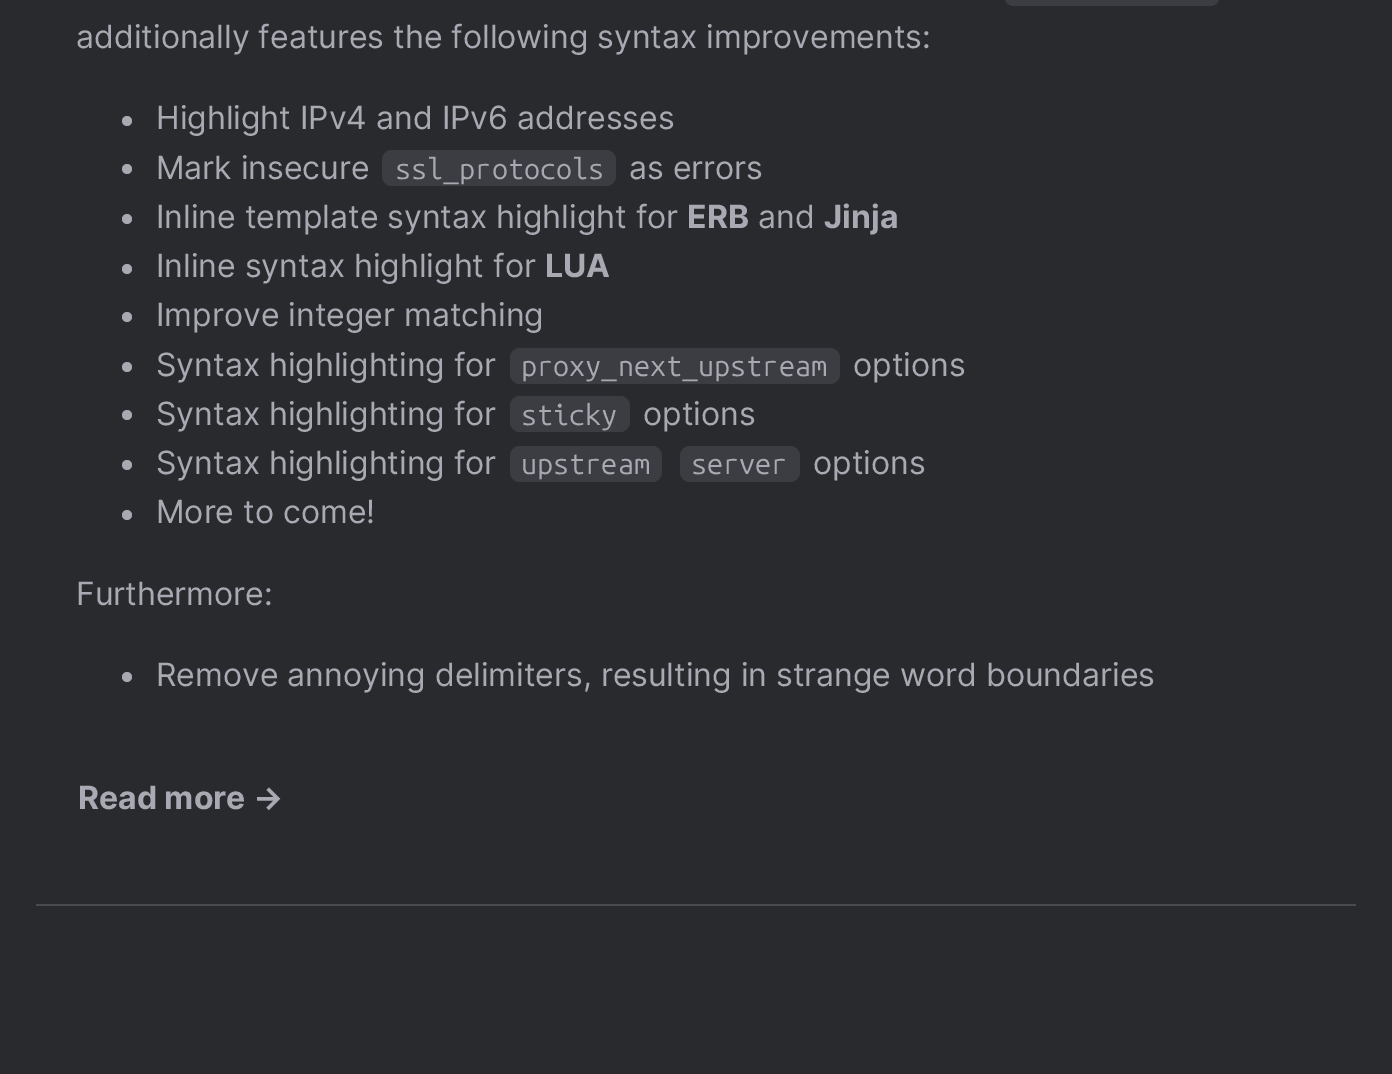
%!PS-Adobe-3.0
%%BoundingBox: 0 0 1392 1074
%%LanguageLevel: 3
%%Pages: 1
%%EndComments
%%BeginProlog
/rrect { 5 dict begin { /r /h /w /y /x } { exch def } forall
  x r add y moveto x w add y 2 copy h add r arct x w add y h add x 1 index r arct
  x y h add x y r arct x y 2 copy exch w add exch r arct closepath end } def
%%EndProlog
%%BeginSetup
<< /PageSize [1392 1074] >> setpagedevice
%%EndSetup
%%Page: 1 1
0 1074 translate 1 -1 scale
4 setmiterlimit
0.161 0.165 0.176 setrgbcolor
0 0 1392 1074 rectfill
0.29 0.294 0.314 setrgbcolor
36 904 1320 2 rectfill
0.231 0.239 0.259 setrgbcolor
1004 -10 216 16 10 rrect fill
0.663 0.663 0.702 setrgbcolor
newpath 127 121 5 0 360 arc closepath fill
newpath 127 169 5 0 360 arc closepath fill
0.231 0.239 0.259 setrgbcolor
382 150 234 36 10 rrect fill
0.663 0.663 0.702 setrgbcolor
newpath 127 219 5 0 360 arc closepath fill
newpath 127 269 5 0 360 arc closepath fill
newpath 127 317 5 0 360 arc closepath fill
newpath 127 367 5 0 360 arc closepath fill
0.231 0.239 0.259 setrgbcolor
510 348 330 36 10 rrect fill
0.663 0.663 0.702 setrgbcolor
newpath 127 415 5 0 360 arc closepath fill
0.231 0.239 0.259 setrgbcolor
510 396 120 36 10 rrect fill
0.663 0.663 0.702 setrgbcolor
newpath 127 465 5 0 360 arc closepath fill
0.231 0.239 0.259 setrgbcolor
510 446 152 36 10 rrect fill
680 446 120 36 10 rrect fill
0.663 0.663 0.702 setrgbcolor
newpath 127 515 5 0 360 arc closepath fill
newpath 127 677 5 0 360 arc closepath fill
/Inter-Regular [32 0 0 -32 0 0] selectfont
76 48 moveto (additionally features the following syntax improvements:) show
156 129 moveto (Highlight IPv4 and IPv6 addresses) show
156 179 moveto (Mark insecure) show
/UbuntuMono-Regular [28.75 0 0 -28.75 0 0] selectfont
395 179 moveto (ssl_protocols) show
/Inter-Regular [32 0 0 -32 0 0] selectfont
629 179 moveto (as errors) show
156 228 moveto (Inline template syntax highlight for) show
/Inter-Bold [32 0 0 -32 0 0] selectfont
687 228 moveto (ERB) show
/Inter-Regular [32 0 0 -32 0 0] selectfont
758 228 moveto (and) show
/Inter-Bold [32 0 0 -32 0 0] selectfont
824 228 moveto (Jinja) show
/Inter-Regular [32 0 0 -32 0 0] selectfont
156 277 moveto (Inline syntax highlight for) show
/Inter-Bold [32 0 0 -32 0 0] selectfont
545 277 moveto (LUA) show
/Inter-Regular [32 0 0 -32 0 0] selectfont
156 326 moveto (Improve integer matching) show
156 376 moveto (Syntax highlighting for) show
/UbuntuMono-Regular [28.75 0 0 -28.75 0 0] selectfont
521 376 moveto (proxy_next_upstream) show
/Inter-Regular [32 0 0 -32 0 0] selectfont
853 376 moveto (options) show
156 425 moveto (Syntax highlighting for) show
/UbuntuMono-Regular [28.75 0 0 -28.75 0 0] selectfont
521 425 moveto (sticky) show
/Inter-Regular [32 0 0 -32 0 0] selectfont
643 425 moveto (options) show
156 474 moveto (Syntax highlighting for) show
/UbuntuMono-Regular [28.75 0 0 -28.75 0 0] selectfont
521 474 moveto (upstream) show
691 474 moveto (server) show
/Inter-Regular [32 0 0 -32 0 0] selectfont
813 474 moveto (options) show
156 523 moveto (More to come!) show
76 605 moveto (Furthermore:) show
156 686 moveto (Remove annoying delimiters, resulting in strange word boundaries) show
/Inter-Bold [32 0 0 -32 0 0] selectfont
78 809 moveto (Read more →) show
showpage
%%EOF
